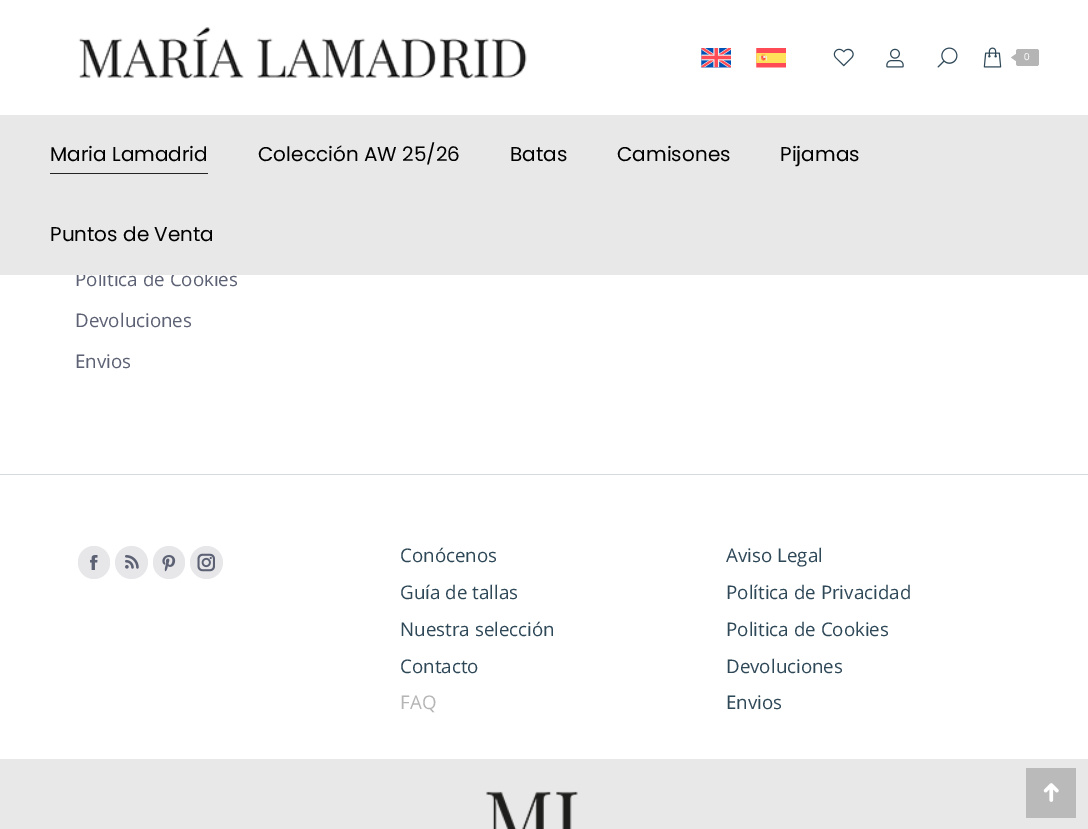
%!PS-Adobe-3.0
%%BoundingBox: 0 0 1088 829
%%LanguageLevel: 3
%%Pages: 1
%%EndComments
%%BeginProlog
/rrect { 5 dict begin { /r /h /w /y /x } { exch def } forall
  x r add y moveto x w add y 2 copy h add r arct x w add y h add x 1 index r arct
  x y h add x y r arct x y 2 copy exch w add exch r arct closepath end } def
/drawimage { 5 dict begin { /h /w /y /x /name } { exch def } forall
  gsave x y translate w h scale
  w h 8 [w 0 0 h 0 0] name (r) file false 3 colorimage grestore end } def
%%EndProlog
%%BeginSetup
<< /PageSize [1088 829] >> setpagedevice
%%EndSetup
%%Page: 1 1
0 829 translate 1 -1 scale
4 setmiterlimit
1 setgray
0 0 1088 829 rectfill
(images/1.raw) 78 27 449 52 drawimage
(images/2.raw) 701 48 30 20 drawimage
(images/3.raw) 756 48 30 20 drawimage
(images/4.raw) 833 48 21 19 drawimage
(images/5.raw) 886 48 18 20 drawimage
(images/6.raw) 937 47 21 21 drawimage
(images/7.raw) 983 47 19 21 drawimage
0.71 setgray
1016 49 23 17 2.5 rrect fill
newpath 1016 54 moveto 1016 61 lineto 1011 57.5 lineto closepath fill
0.835 0.855 0.871 setrgbcolor
0 474 1088 1 rectfill
0.906 0.906 0.918 setrgbcolor
78 546 32 33 16 rrect fill
(images/8.raw) 90 555 8 15 drawimage
newpath 131.5 562.5 16.5 0 360 arc closepath fill
(images/9.raw) 125 555 14 14 drawimage
153 546 32 33 16 rrect fill
(images/10.raw) 162 555 14 17 drawimage
newpath 206.5 562.5 16.5 0 360 arc closepath fill
(images/11.raw) 197 553 18 19 drawimage
0.91 setgray
0 759 1088 70 rectfill
(images/12.raw) 486 791 92 38 drawimage
0.729 setgray
1026 768 50 50 rectfill
(images/13.raw) 1043 783 16 19 drawimage
/LiberationSans-Regular [10 0 0 -10 0 0] selectfont
1 setgray
1024 60 moveto (0) show
/OpenSans-Regular [18.75 0 0 -18.75 0 0] selectfont
0.361 0.38 0.455 setrgbcolor
75 286 moveto (Politica de Cookies) show
0.91 setgray
0 115 1088 160 rectfill
/Poppins-Regular [20 0 0 -20 0 0] selectfont
0 setgray
50 241 moveto (Puntos de Venta) show
780 161 moveto (Pijamas) show
617 161 moveto (Camisones) show
510 161 moveto (Batas) show
258 161 moveto (Colección AW 25/26) show
0.137 setgray
50 173 158 1 rectfill
0 setgray
50 161 moveto (Maria Lamadrid) show
/OpenSans-Regular [18.75 0 0 -18.75 0 0] selectfont
0.361 0.38 0.455 setrgbcolor
75 327 moveto (Devoluciones) show
75 368 moveto (Envios) show
0.184 0.282 0.345 setrgbcolor
400 562 moveto (Conócenos) show
400 599 moveto (Guía de tallas) show
400 636 moveto (Nuestra selección) show
400 673 moveto (Contacto) show
0.71 setgray
400 709 moveto (FAQ) show
0.184 0.282 0.345 setrgbcolor
726 562 moveto (Aviso Legal) show
726 599 moveto (Política de Privacidad) show
726 636 moveto (Politica de Cookies) show
726 673 moveto (Devoluciones) show
726 709 moveto (Envios) show
showpage
%%EOF
